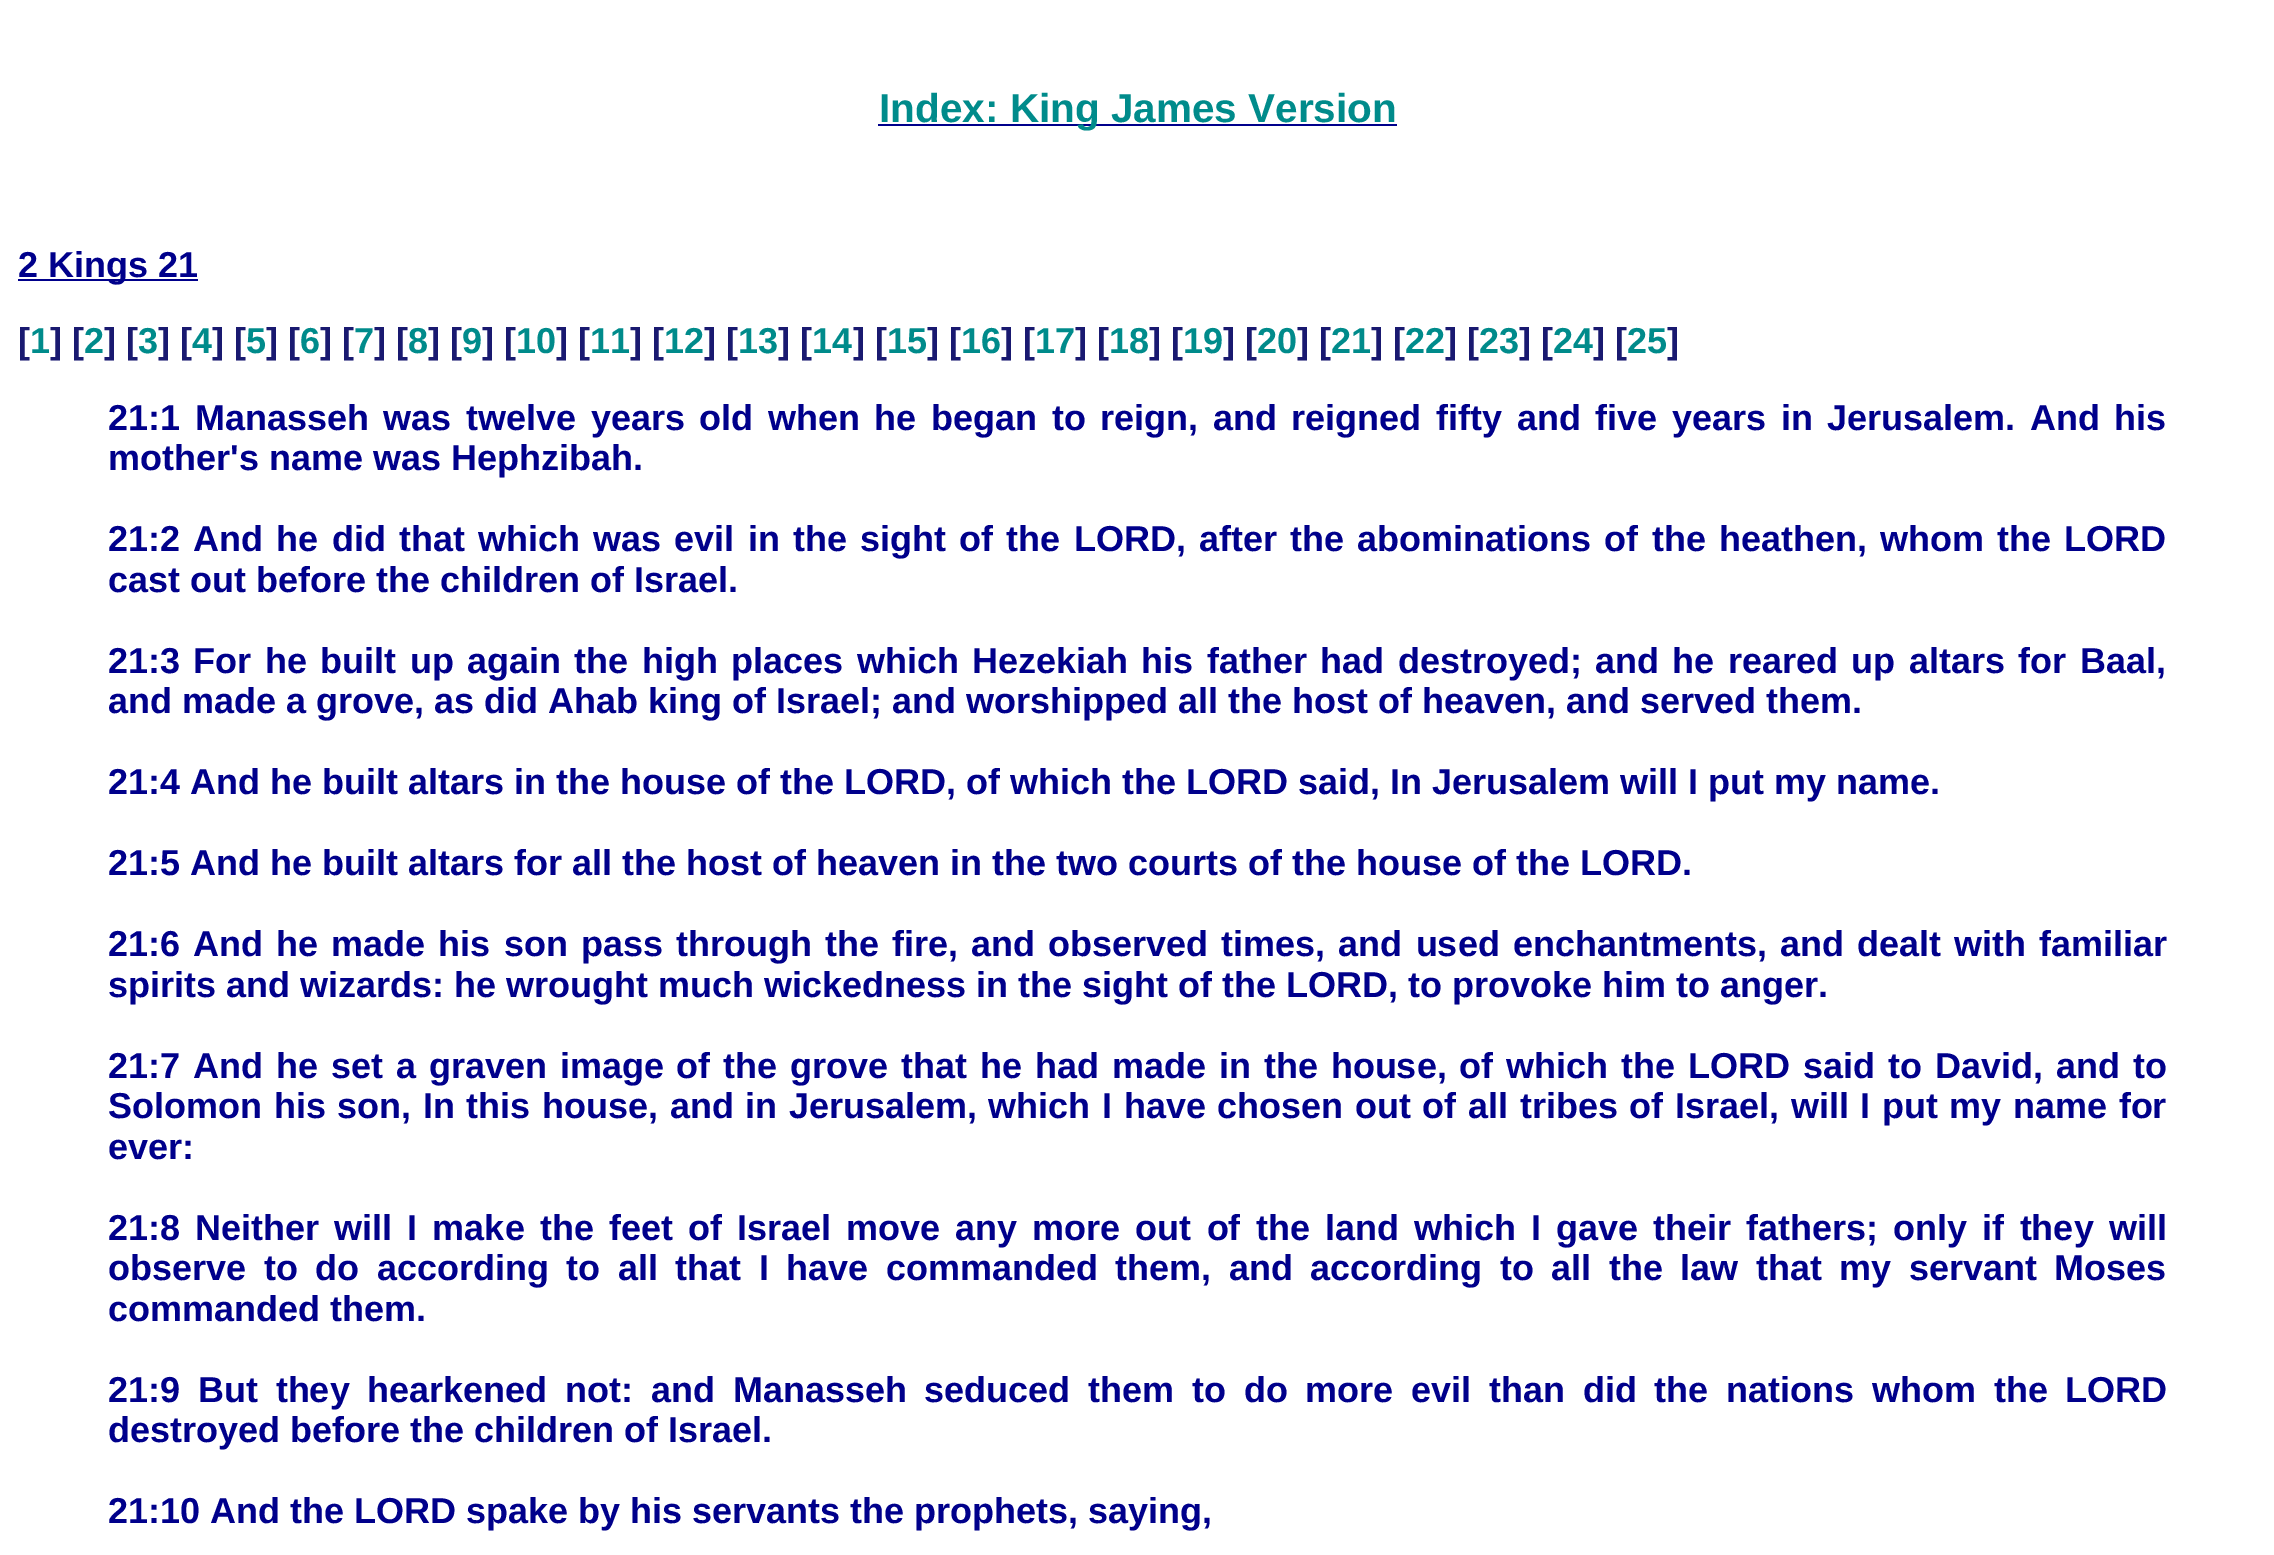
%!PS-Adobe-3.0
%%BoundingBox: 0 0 2274 1555
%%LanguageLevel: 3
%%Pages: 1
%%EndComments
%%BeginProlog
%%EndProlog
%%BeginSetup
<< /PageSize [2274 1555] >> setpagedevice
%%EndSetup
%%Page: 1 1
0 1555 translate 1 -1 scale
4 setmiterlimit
1 setgray
0 0 2274 1555 rectfill
0 0 0.545 setrgbcolor
878 124 519 2 rectfill
18 279 180 2 rectfill
/LiberationSans-Bold [40.5 0 0 -40.5 0 0] selectfont
0 0.545 0.545 setrgbcolor
879 122 moveto (Index: King James Version) show
/LiberationSans-Bold [36 0 0 -36 0 0] selectfont
0 0 0.545 setrgbcolor
18 277 moveto (2 Kings 21) show
0.098 0.098 0.439 setrgbcolor
18 353 moveto ([) show
0 0.545 0.545 setrgbcolor
30 353 moveto (1) show
0.098 0.098 0.439 setrgbcolor
50 353 moveto (] [) show
0 0.545 0.545 setrgbcolor
84 353 moveto (2) show
0.098 0.098 0.439 setrgbcolor
104 353 moveto (] [) show
0 0.545 0.545 setrgbcolor
138 353 moveto (3) show
0.098 0.098 0.439 setrgbcolor
158 353 moveto (] [) show
0 0.545 0.545 setrgbcolor
192 353 moveto (4) show
0.098 0.098 0.439 setrgbcolor
212 353 moveto (] [) show
0 0.545 0.545 setrgbcolor
246 353 moveto (5) show
0.098 0.098 0.439 setrgbcolor
266 353 moveto (] [) show
0 0.545 0.545 setrgbcolor
300 353 moveto (6) show
0.098 0.098 0.439 setrgbcolor
320 353 moveto (] [) show
0 0.545 0.545 setrgbcolor
354 353 moveto (7) show
0.098 0.098 0.439 setrgbcolor
374 353 moveto (] [) show
0 0.545 0.545 setrgbcolor
408 353 moveto (8) show
0.098 0.098 0.439 setrgbcolor
428 353 moveto (] [) show
0 0.545 0.545 setrgbcolor
462 353 moveto (9) show
0.098 0.098 0.439 setrgbcolor
482 353 moveto (] [) show
0 0.545 0.545 setrgbcolor
516 353 moveto (10) show
0.098 0.098 0.439 setrgbcolor
556 353 moveto (] [) show
0 0.545 0.545 setrgbcolor
590 353 moveto (11) show
0.098 0.098 0.439 setrgbcolor
630 353 moveto (] [) show
0 0.545 0.545 setrgbcolor
664 353 moveto (12) show
0.098 0.098 0.439 setrgbcolor
704 353 moveto (] [) show
0 0.545 0.545 setrgbcolor
738 353 moveto (13) show
0.098 0.098 0.439 setrgbcolor
778 353 moveto (] [) show
0 0.545 0.545 setrgbcolor
812 353 moveto (14) show
0.098 0.098 0.439 setrgbcolor
853 353 moveto (] [) show
0 0.545 0.545 setrgbcolor
887 353 moveto (15) show
0.098 0.098 0.439 setrgbcolor
927 353 moveto (] [) show
0 0.545 0.545 setrgbcolor
961 353 moveto (16) show
0.098 0.098 0.439 setrgbcolor
1001 353 moveto (] [) show
0 0.545 0.545 setrgbcolor
1035 353 moveto (17) show
0.098 0.098 0.439 setrgbcolor
1075 353 moveto (] [) show
0 0.545 0.545 setrgbcolor
1109 353 moveto (18) show
0.098 0.098 0.439 setrgbcolor
1149 353 moveto (] [) show
0 0.545 0.545 setrgbcolor
1183 353 moveto (19) show
0.098 0.098 0.439 setrgbcolor
1223 353 moveto (] [) show
0 0.545 0.545 setrgbcolor
1257 353 moveto (20) show
0.098 0.098 0.439 setrgbcolor
1297 353 moveto (] [) show
0 0.545 0.545 setrgbcolor
1331 353 moveto (21) show
0.098 0.098 0.439 setrgbcolor
1371 353 moveto (] [) show
0 0.545 0.545 setrgbcolor
1405 353 moveto (22) show
0.098 0.098 0.439 setrgbcolor
1445 353 moveto (] [) show
0 0.545 0.545 setrgbcolor
1479 353 moveto (23) show
0.098 0.098 0.439 setrgbcolor
1519 353 moveto (] [) show
0 0.545 0.545 setrgbcolor
1553 353 moveto (24) show
0.098 0.098 0.439 setrgbcolor
1593 353 moveto (] [) show
0 0.545 0.545 setrgbcolor
1627 353 moveto (25) show
0.098 0.098 0.439 setrgbcolor
1667 353 moveto (]) show
0 0 0.545 setrgbcolor
108 430 moveto 4.6 0 32 (21:1 Manasseh was twelve years old when he began to reign, and reigned fifty and five years in Jerusalem. And his) widthshow
108 470 moveto (mother's name was Hephzibah.) show
108 551 moveto 3.2 0 32 (21:2 And he did that which was evil in the sight of the LORD, after the abominations of the heathen, whom the LORD) widthshow
108 592 moveto (cast out before the children of Israel.) show
108 673 moveto 3.4 0 32 (21:3 For he built up again the high places which Hezekiah his father had destroyed; and he reared up altars for Baal,) widthshow
108 713 moveto (and made a grove, as did Ahab king of Israel; and worshipped all the host of heaven, and served them.) show
108 794 moveto (21:4 And he built altars in the house of the LORD, of which the LORD said, In Jerusalem will I put my name.) show
108 875 moveto (21:5 And he built altars for all the host of heaven in the two courts of the house of the LORD.) show
108 956 moveto 3.1 0 32 (21:6 And he made his son pass through the fire, and observed times, and used enchantments, and dealt with familiar) widthshow
108 997 moveto (spirits and wizards: he wrought much wickedness in the sight of the LORD, to provoke him to anger.) show
108 1078 moveto 2.9 0 32 (21:7 And he set a graven image of the grove that he had made in the house, of which the LORD said to David, and to) widthshow
108 1118 moveto 1.6 0 32 (Solomon his son, In this house, and in Jerusalem, which I have chosen out of all tribes of Israel, will I put my name for) widthshow
108 1159 moveto (ever:) show
108 1240 moveto 5.1 0 32 (21:8 Neither will I make the feet of Israel move any more out of the land which I gave their fathers; only if they will) widthshow
108 1280 moveto 7.5 0 32 (observe to do according to all that I have commanded them, and according to all the law that my servant Moses) widthshow
108 1321 moveto (commanded them.) show
108 1402 moveto 7.75 0 32 (21:9 But they hearkened not: and Manasseh seduced them to do more evil than did the nations whom the LORD) widthshow
108 1442 moveto (destroyed before the children of Israel.) show
108 1523 moveto (21:10 And the LORD spake by his servants the prophets, saying,) show
showpage
%%EOF
